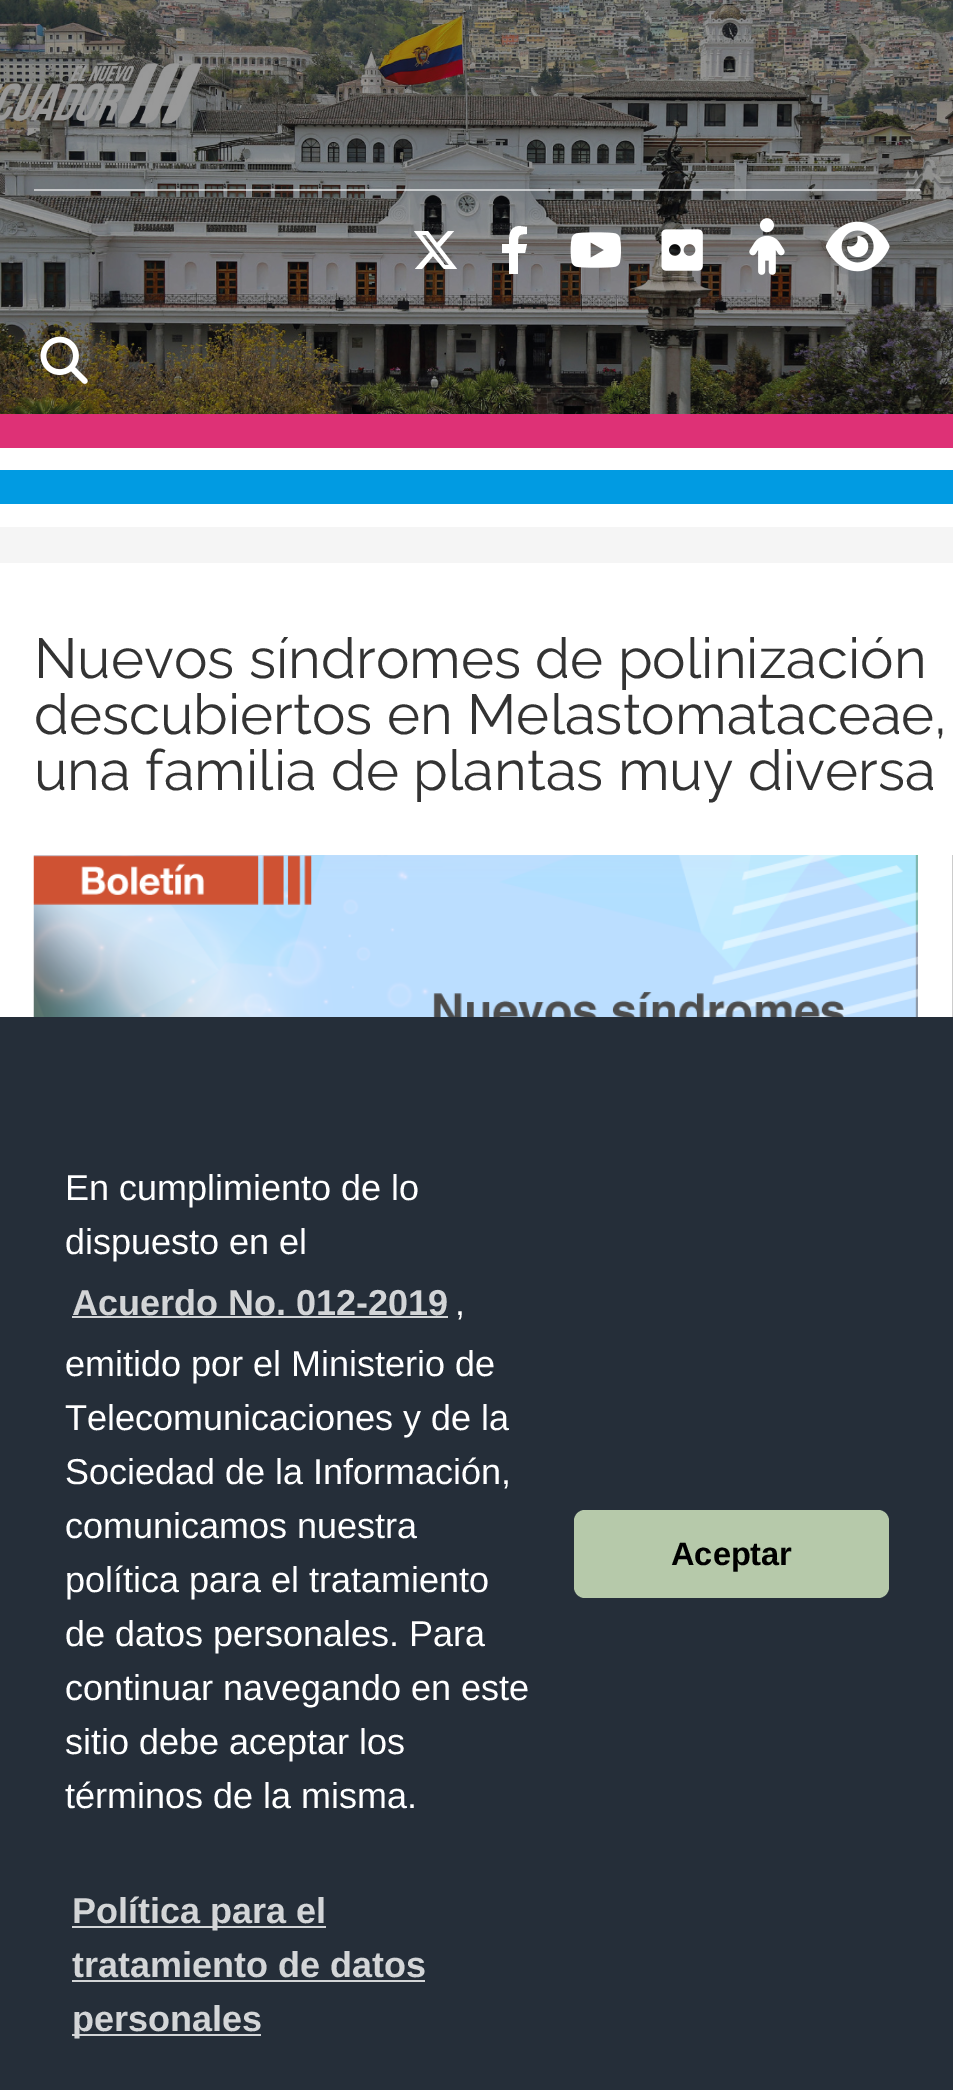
%!PS-Adobe-3.0
%%BoundingBox: 0 0 953 2090
%%LanguageLevel: 3
%%Pages: 1
%%EndComments
%%BeginProlog
/setalpha { dup .setfillconstantalpha .setstrokeconstantalpha } def
/rrect { 5 dict begin { /r /h /w /y /x } { exch def } forall
  x r add y moveto x w add y 2 copy h add r arct x w add y h add x 1 index r arct
  x y h add x y r arct x y 2 copy exch w add exch r arct closepath end } def
/drawimage { 5 dict begin { /h /w /y /x /name } { exch def } forall
  gsave x y translate w h scale
  w h 8 [w 0 0 h 0 0] name (r) file false 3 colorimage grestore end } def
%%EndProlog
%%BeginSetup
<< /PageSize [953 2090] /PageUsesTransparency true >> setpagedevice
%%EndSetup
%%Page: 1 1
0 .pushpdf14devicefilter
0 2090 translate 1 -1 scale
4 setmiterlimit
1 setgray
0 0 953 2090 rectfill
(images/1.raw) 0 0 953 414 drawimage
0.6 setalpha
34 189 886 2 rectfill
1 setalpha
newpath 448 231 moveto 454 231 lineto 440 247 lineto 457 269 lineto 444 269 lineto 433 256 lineto 422 269 lineto 415 269 lineto 430 252 lineto 414 231 lineto 428 231 lineto 437 243 lineto closepath 445 265 moveto 449 265 lineto 426 235 lineto 422 235 lineto closepath fill
newpath 525 253 moveto 527 244 lineto 518 244 lineto 518 236 518 234 527 234 curveto 527 227 lineto 519 226 lineto 509 227 509 236 509 244 curveto 502 244 lineto 502 253 lineto 509 253 lineto 509 274 lineto 518 274 lineto 518 253 lineto closepath fill
(images/2.raw) 570 232 51 36 drawimage
(images/3.raw) 661 229 42 42 drawimage
(images/4.raw) 749 218 36 57 drawimage
(images/5.raw) 825 221 65 51 drawimage
(images/6.raw) 40 336 48 48 drawimage
0.871 0.192 0.463 setrgbcolor
0 414 953 34 rectfill
0.004 0.608 0.886 setrgbcolor
0 470 953 34 rectfill
0.961 setgray
0 527 953 36 rectfill
0.8 setgray
952 855 1 162 rectfill
(images/7.raw) 33 855 885 162 drawimage
0.145 0.18 0.224 setrgbcolor
0 1017 953 1073 rectfill
0.827 0.835 0.843 setrgbcolor
72 1316 376 2 rectfill
72 1926 254 2 rectfill
72 1980 353 2 rectfill
72 2034 189 2 rectfill
0.714 0.788 0.667 setrgbcolor
574 1510 315 88 11 rrect fill
/Raleway-Thin [56.25 0 0 -56.25 0 0] selectfont
0.2 setgray
34 678 moveto (Nuevos síndromes de polinización) show
34 734 moveto (descubiertos en Melastomataceae,) show
34 790 moveto (una familia de plantas muy diversa) show
/LiberationSans-Regular [36 0 0 -36 0 0] selectfont
1 setgray
65 1200 moveto (En cumplimiento de lo) show
65 1254 moveto (dispuesto en el) show
/LiberationSans-Bold [36 0 0 -36 0 0] selectfont
0.827 0.835 0.843 setrgbcolor
72 1315 moveto (Acuerdo No. 012-2019) show
/LiberationSans-Regular [36 0 0 -36 0 0] selectfont
1 setgray
455 1315 moveto (,) show
65 1376 moveto (emitido por el Ministerio de) show
65 1430 moveto (Telecomunicaciones y de la) show
65 1484 moveto (Sociedad de la Información,) show
65 1538 moveto (comunicamos nuestra) show
65 1592 moveto (política para el tratamiento) show
65 1646 moveto (de datos personales. Para) show
65 1700 moveto (continuar navegando en este) show
65 1754 moveto (sitio debe aceptar los) show
65 1808 moveto (términos de la misma.) show
/LiberationSans-Bold [36 0 0 -36 0 0] selectfont
0.827 0.835 0.843 setrgbcolor
72 1923 moveto (Política para el) show
72 1977 moveto (tratamiento de datos) show
72 2031 moveto (personales) show
/LiberationSans-Bold [32.5 0 0 -32.5 0 0] selectfont
0 setgray
671 1565 moveto (Aceptar) show
.poppdf14devicefilter showpage
%%EOF
